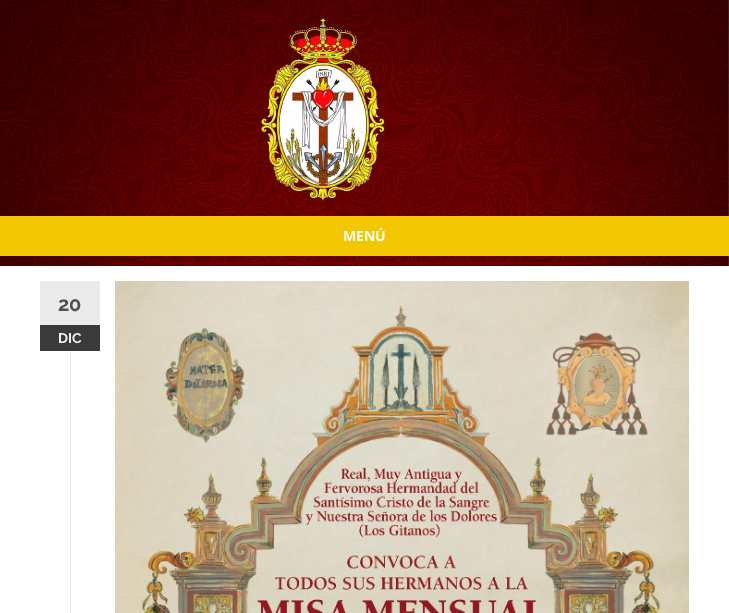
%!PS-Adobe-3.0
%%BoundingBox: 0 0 729 613
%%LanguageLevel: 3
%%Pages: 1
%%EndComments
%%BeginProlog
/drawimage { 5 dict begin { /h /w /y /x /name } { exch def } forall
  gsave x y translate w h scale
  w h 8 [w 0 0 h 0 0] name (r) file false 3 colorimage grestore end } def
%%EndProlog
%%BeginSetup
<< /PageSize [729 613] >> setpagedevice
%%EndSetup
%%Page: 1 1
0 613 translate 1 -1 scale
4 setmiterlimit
1 setgray
0 0 729 613 rectfill
(images/1.raw) 0 0 729 266 drawimage
(images/2.raw) 261 18 126 183 drawimage
0.949 0.776 0 setrgbcolor
0 216 729 40 rectfill
0.918 setgray
40 281 60 44 rectfill
0.227 setgray
40 325 60 26 rectfill
(images/3.raw) 115 281 574 332 drawimage
0.918 setgray
70 351 1 262 rectfill
/OpenSans-Bold [14 0 0 -14 0 0] selectfont
1 setgray
343 241 moveto (MENÚ) show
/Raleway-Bold [20 0 0 -20 0 0] selectfont
0.314 setgray
58 311 moveto (20) show
/Raleway-Bold [14 0 0 -14 0 0] selectfont
0.945 setgray
58 343 moveto (DIC) show
showpage
%%EOF
